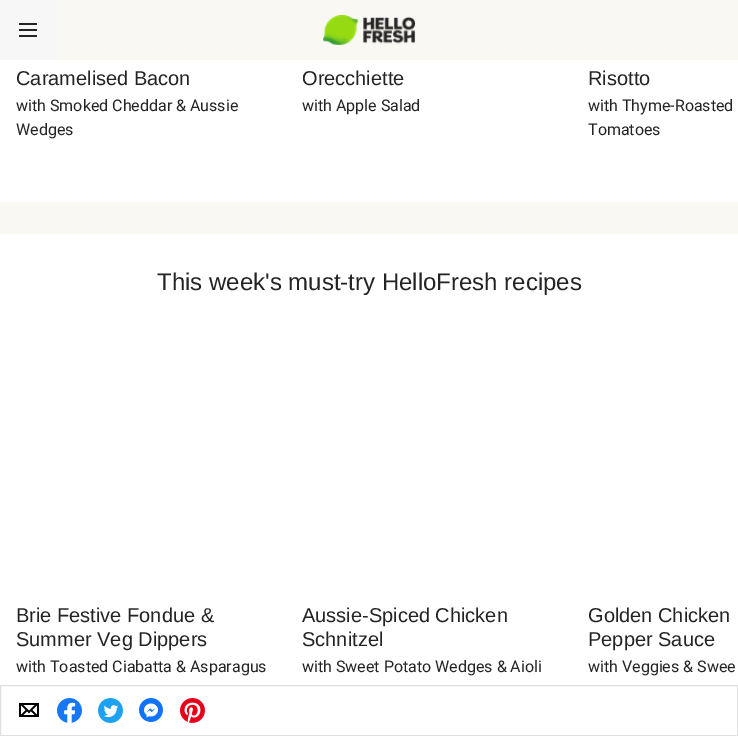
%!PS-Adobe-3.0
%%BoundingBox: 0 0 738 736
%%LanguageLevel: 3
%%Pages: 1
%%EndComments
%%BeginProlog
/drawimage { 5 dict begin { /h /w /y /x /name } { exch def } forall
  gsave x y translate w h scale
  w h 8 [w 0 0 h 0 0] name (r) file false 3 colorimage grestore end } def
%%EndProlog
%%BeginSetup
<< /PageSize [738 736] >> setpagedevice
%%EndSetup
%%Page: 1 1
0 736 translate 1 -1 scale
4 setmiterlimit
0.98 0.973 0.953 setrgbcolor
0 0 738 736 rectfill
0.969 setgray
0 0 56 60 rectfill
(images/1.raw) 19 23 18 14 drawimage
(images/2.raw) 323 15 93 30 drawimage
1 setgray
0 60 738 142 rectfill
0 234 738 451 rectfill
newpath 0.5 685.5 moveto 737.5 685.5 lineto 737.5 735.5 lineto 0.5 735.5 lineto closepath gsave fill grestore
0.878 setgray
stroke
(images/3.raw) 19 703 20 14 drawimage
(images/4.raw) 57 698 25 25 drawimage
(images/5.raw) 98 698 25 25 drawimage
(images/6.raw) 139 698 24 24 drawimage
(images/7.raw) 180 698 25 25 drawimage
/LiberationSans-Regular [20 0 0 -20 0 0] selectfont
0.141 setgray
16 85 moveto (Caramelised Bacon) show
/Roboto-Regular [16 0 0 -16 0 0] selectfont
16 111 moveto (with Smoked Cheddar & Aussie) show
16 135 moveto (Wedges) show
/LiberationSans-Regular [20 0 0 -20 0 0] selectfont
302 85 moveto (Orecchiette) show
/Roboto-Regular [16 0 0 -16 0 0] selectfont
302 111 moveto (with Apple Salad) show
/LiberationSans-Regular [20 0 0 -20 0 0] selectfont
588 85 moveto (Risotto) show
/Roboto-Regular [16 0 0 -16 0 0] selectfont
588 111 moveto (with Thyme-Roasted) show
588 135 moveto (Tomatoes) show
/LiberationSans-Regular [24 0 0 -24 0 0] selectfont
157 290 moveto (This week's must-try HelloFresh recipes) show
/LiberationSans-Regular [20 0 0 -20 0 0] selectfont
16 622 moveto (Brie Festive Fondue &) show
16 646 moveto (Summer Veg Dippers) show
/Roboto-Regular [16 0 0 -16 0 0] selectfont
16 672 moveto (with Toasted Ciabatta & Asparagus) show
/LiberationSans-Regular [20 0 0 -20 0 0] selectfont
302 622 moveto (Aussie-Spiced Chicken) show
302 646 moveto (Schnitzel) show
/Roboto-Regular [16 0 0 -16 0 0] selectfont
302 672 moveto (with Sweet Potato Wedges & Aioli) show
/LiberationSans-Regular [20 0 0 -20 0 0] selectfont
588 622 moveto (Golden Chicken) show
588 646 moveto (Pepper Sauce) show
/Roboto-Regular [16 0 0 -16 0 0] selectfont
588 672 moveto (with Veggies & Swee) show
showpage
%%EOF
